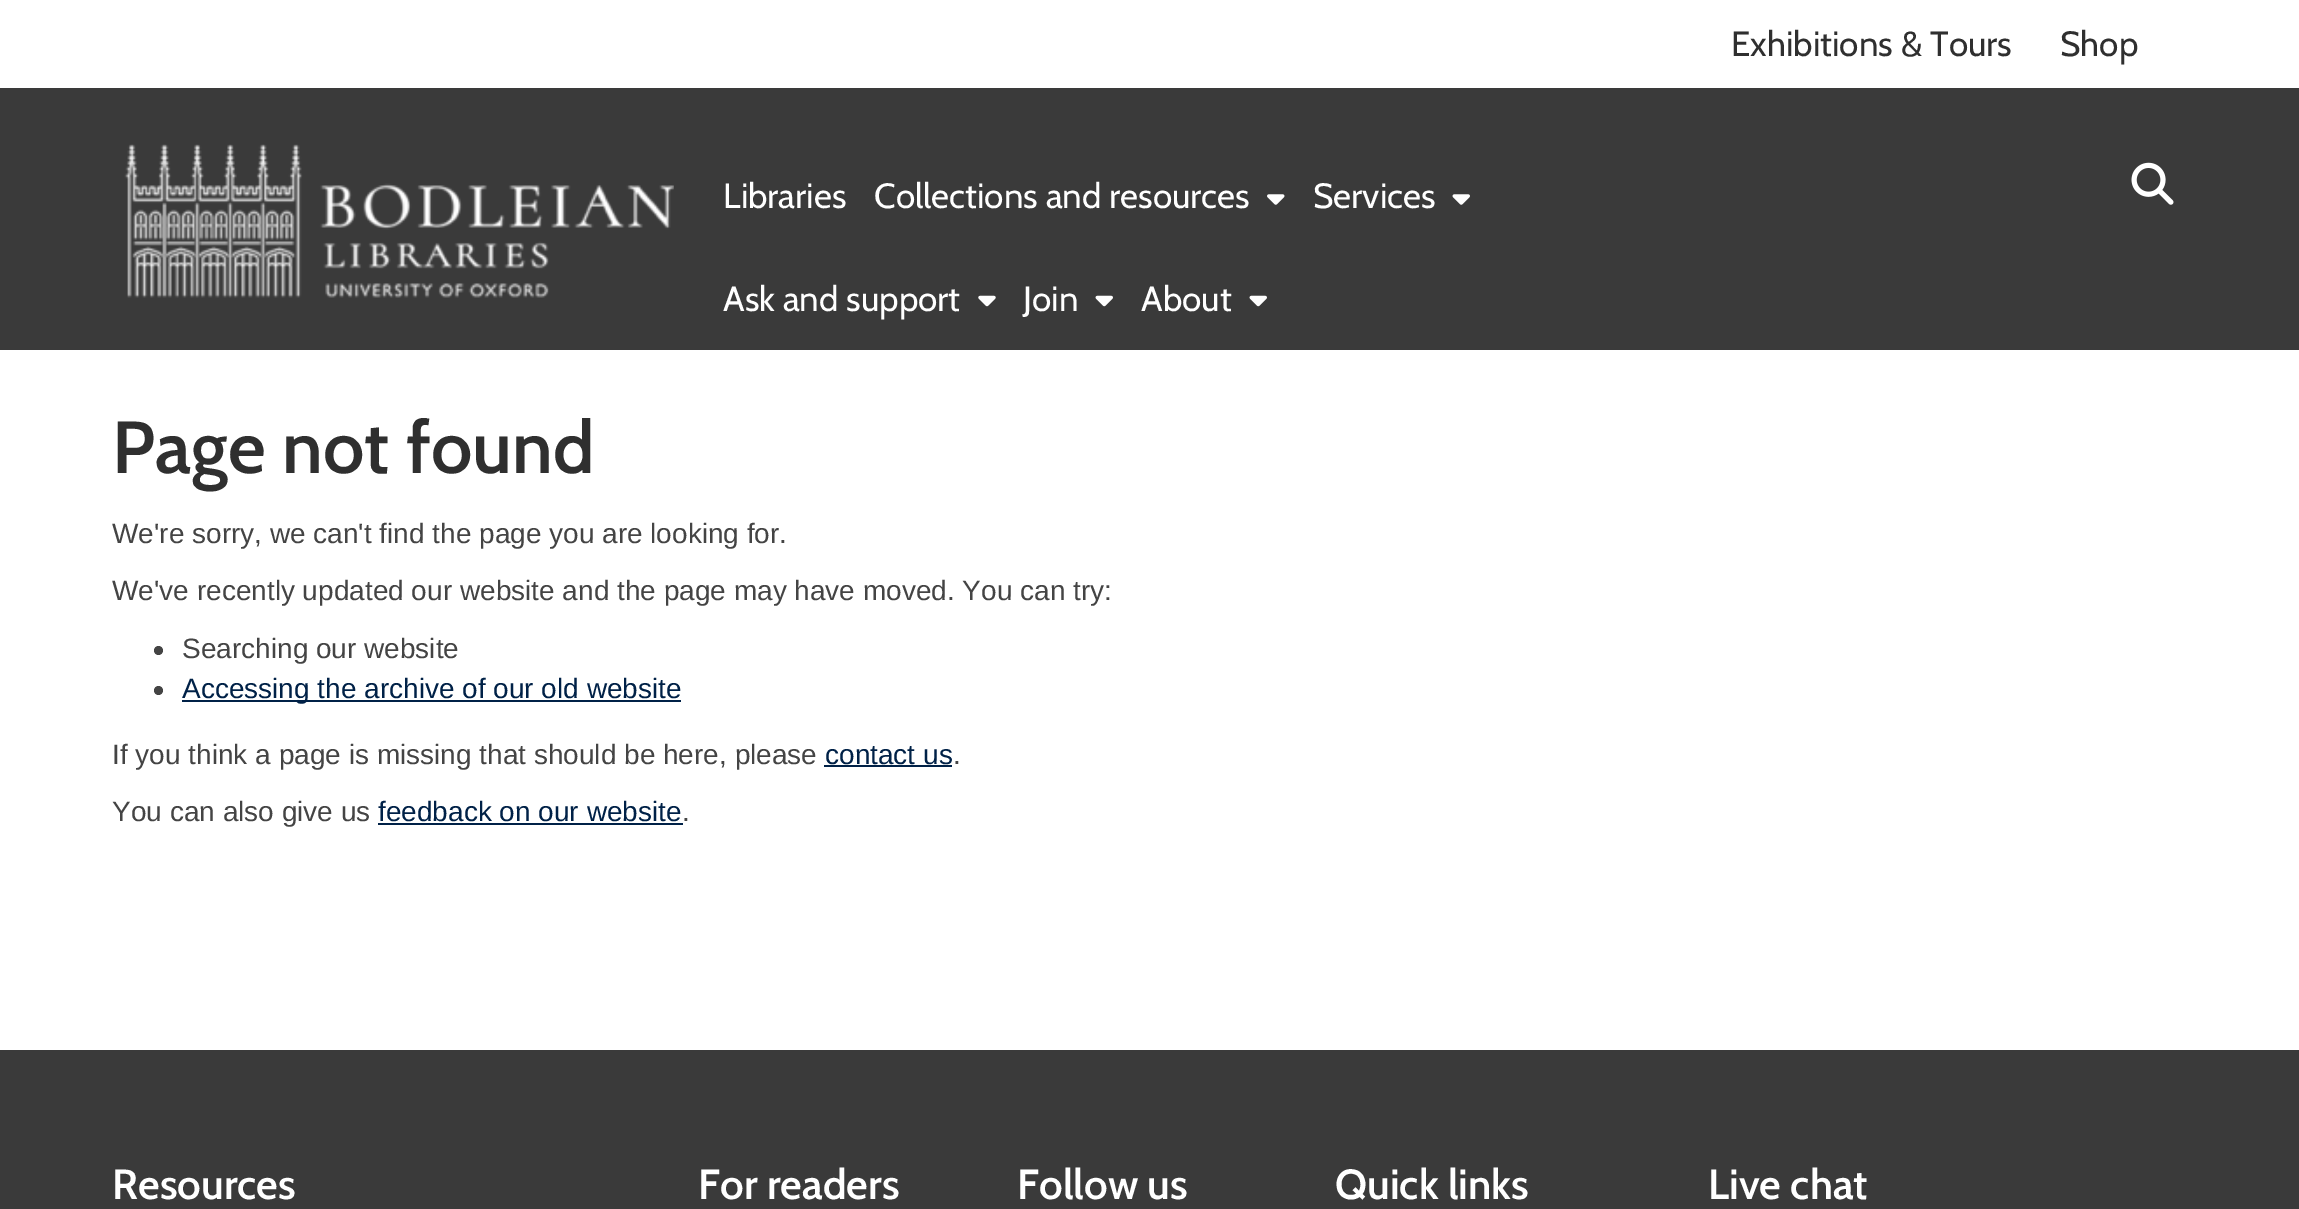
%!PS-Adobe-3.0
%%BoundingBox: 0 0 2299 1209
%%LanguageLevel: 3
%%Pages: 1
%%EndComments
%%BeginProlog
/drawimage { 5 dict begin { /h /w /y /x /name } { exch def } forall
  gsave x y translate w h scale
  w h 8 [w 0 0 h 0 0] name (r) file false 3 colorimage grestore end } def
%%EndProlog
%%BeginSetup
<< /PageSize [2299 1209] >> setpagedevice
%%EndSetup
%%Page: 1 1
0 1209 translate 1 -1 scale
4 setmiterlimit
1 setgray
0 0 2299 1209 rectfill
0.227 setgray
0 88 2299 262 rectfill
(images/1.raw) 124 144 550 154 drawimage
(images/2.raw) 1267 194 18 11 drawimage
(images/3.raw) 1452 194 18 11 drawimage
(images/4.raw) 978 295 18 12 drawimage
(images/5.raw) 1095 295 18 12 drawimage
(images/5.raw) 1249 295 18 12 drawimage
(images/6.raw) 2131 162 43 43 drawimage
0.267 setgray
newpath 158.5 650.5 4.5 0 360 arc closepath fill
newpath 158.5 690.5 4.5 0 360 arc closepath fill
0 0.129 0.278 setrgbcolor
182 700 499 2 rectfill
824 765 128 2 rectfill
378 823 305 2 rectfill
0.227 setgray
0 1050 2299 159 rectfill
/Cabin-Regular [35 0 0 -35 0 0] selectfont
0.184 setgray
1731 56 moveto (Exhibitions & Tours) show
2060 56 moveto (Shop) show
1 setgray
723 208 moveto (Libraries) show
874 208 moveto (Collections and resources) show
1313 208 moveto (Services) show
723 311 moveto (Ask and support) show
1023 311 moveto (Join) show
1141 311 moveto (About) show
/Cabin-SemiBold [73.5 0 0 -73.5 0 0] selectfont
0.184 setgray
112 473 moveto (Page not found) show
/LiberationSans-Regular [28 0 0 -28 0 0] selectfont
0.267 setgray
112 543 moveto (We're sorry, we can't find the page you are looking for.) show
112 600 moveto (We've recently updated our website and the page may have moved. You can try:) show
182 658 moveto (Searching our website) show
0 0.129 0.278 setrgbcolor
182 698 moveto (Accessing the archive of our old website) show
0.267 setgray
112 764 moveto (If you think a page is missing that should be here, please) show
0 0.129 0.278 setrgbcolor
825 764 moveto (contact us) show
0.267 setgray
953 764 moveto (.) show
112 821 moveto (You can also give us) show
0 0.129 0.278 setrgbcolor
378 821 moveto (feedback on our website) show
0.267 setgray
682 821 moveto (.) show
/Cabin-SemiBold [42 0 0 -42 0 0] selectfont
1 setgray
112 1199 moveto (Resources) show
698 1199 moveto (For readers) show
1017 1199 moveto (Follow us) show
1335 1199 moveto (Quick links) show
1708 1199 moveto (Live chat) show
showpage
%%EOF
